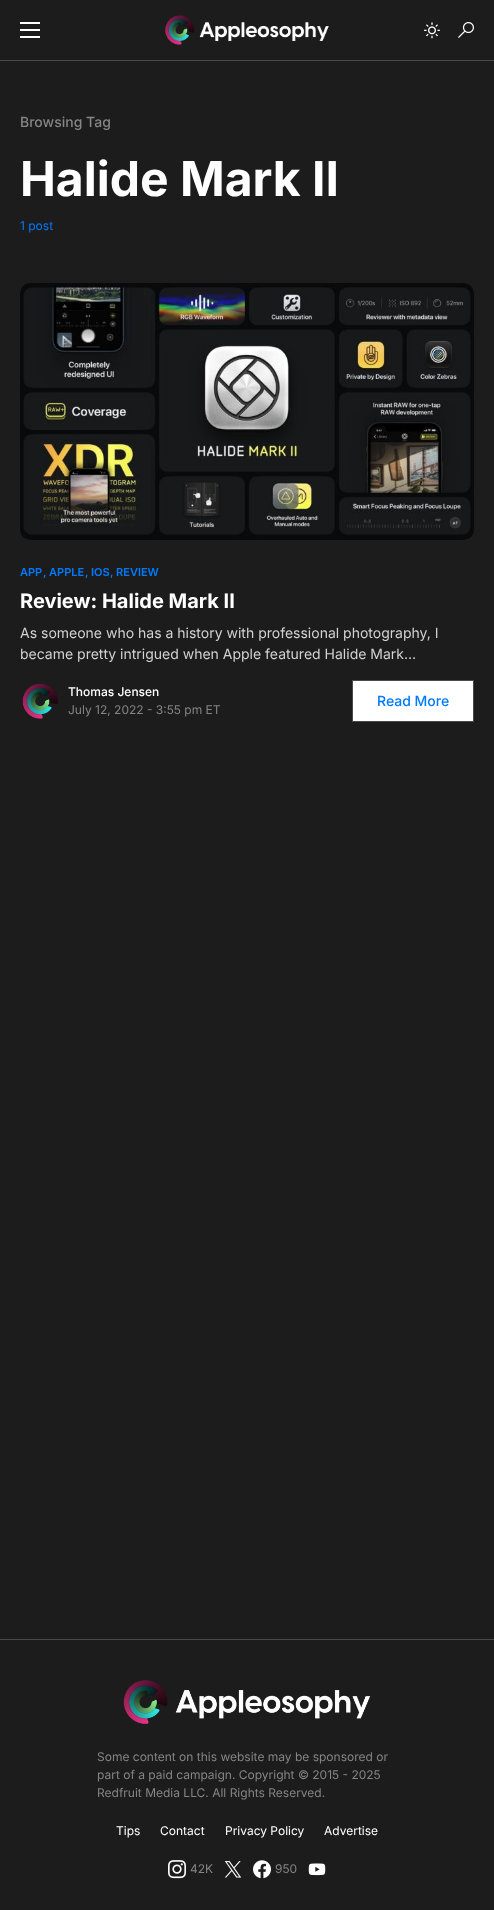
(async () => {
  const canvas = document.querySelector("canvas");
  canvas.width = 494;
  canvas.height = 1910;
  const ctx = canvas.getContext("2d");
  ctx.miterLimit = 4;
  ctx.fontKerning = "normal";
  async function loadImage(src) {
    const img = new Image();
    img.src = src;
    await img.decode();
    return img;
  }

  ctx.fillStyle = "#1c1c1c";
  ctx.fillRect(0, 0, 494, 1910);
  for (const [x, y, w, h, color] of [
    [0, 60, 494, 1, "#49494b"],
    [20, 22, 20, 2, "#ffffff"],
    [20, 29, 20, 2, "#ffffff"],
    [20, 36, 20, 2, "#ffffff"],
  ]) {
    ctx.fillStyle = color;
    ctx.fillRect(x, y, w, h);
  }
  ctx.drawImage(await loadImage("img/1.png"), 164, 15, 165, 30);
  ctx.drawImage(await loadImage("img/2.png"), 424, 22, 16, 17);
  ctx.drawImage(await loadImage("img/3.png"), 458, 22, 16, 16);
  ctx.drawImage(await loadImage("img/4.png"), 20, 283, 454, 257);
  ctx.drawImage(await loadImage("img/5.png"), 22, 683, 36, 36);
  ctx.beginPath();
  ctx.rect(352.5, 680.5, 121, 41);
  ctx.fill();
  ctx.strokeStyle = "#49494b";
  ctx.stroke();
  ctx.fillStyle = "#49494b";
  ctx.fillRect(0, 1639, 494, 1);
  ctx.drawImage(await loadImage("img/6.png"), 123, 1680, 248, 44);
  ctx.drawImage(await loadImage("img/7.png"), 168, 1860, 18, 19);
  ctx.drawImage(await loadImage("img/8.png"), 224, 1861, 18, 17);
  ctx.drawImage(await loadImage("img/9.png"), 253, 1860, 18, 19);
  ctx.drawImage(await loadImage("img/10.png"), 308, 1863, 18, 13);
  ctx.font = "500 14px Inter";
  ctx.fillStyle = "#858585";
  ctx.fillText("Browsing Tag", 20, 127);
  ctx.font = "bold 48px Inter";
  ctx.fillStyle = "#ffffff";
  ctx.fillText("Halide Mark II", 20, 196);
  ctx.font = "12px Inter";
  ctx.fillStyle = "#007aff";
  ctx.fillText("1 post", 20, 230);
  ctx.font = "600 11px Inter";
  for (const [text, x, y] of [
    ["APP", 20, 576],
    [", APPLE", 43, 576],
    [", IOS", 85, 576],
    [", REVIEW", 110, 576],
  ]) {
    ctx.fillText(text, x, y);
  }
  ctx.font = "bold 20px Inter";
  ctx.fillStyle = "#ffffff";
  ctx.fillText("Review: Halide Mark II", 20, 608);
  ctx.font = "14px Inter";
  ctx.fillStyle = "#d2d2d2";
  ctx.fillText("As someone who has a history with professional photography, I", 20, 638);
  ctx.fillText("became pretty intrigued when Apple featured Halide Mark…", 20, 659);
  ctx.font = "500 12px Inter";
  ctx.fillStyle = "#ffffff";
  ctx.fillText("Thomas Jensen", 68, 696);
  ctx.font = "12px Inter";
  ctx.fillStyle = "#858585";
  ctx.fillText("July 12, 2022 - 3:55 pm ET", 68, 714);
  ctx.font = "500 14px Inter";
  ctx.fillStyle = "#007aff";
  ctx.fillText("Read More", 377, 706);
  ctx.font = "12px Inter";
  ctx.fillStyle = "#858585";
  for (const [text, x, y] of [
    ["Some content on this website may be sponsored or", 97, 1761],
    ["part of a paid campaign. Copyright © 2015 - 2025", 97, 1779],
    ["Redfruit Media LLC. All Rights Reserved.", 97, 1797],
  ]) {
    ctx.fillText(text, x, y);
  }
  ctx.fillStyle = "#ffffff";
  for (const [text, x, y] of [
    ["Tips", 116, 1835],
    ["Contact", 160, 1835],
    ["Privacy Policy", 225, 1835],
    ["Advertise", 324, 1835],
  ]) {
    ctx.fillText(text, x, y);
  }
  ctx.fillStyle = "#858585";
  ctx.fillText("42K", 190, 1873);
  ctx.fillText("950", 275, 1873);
})();
